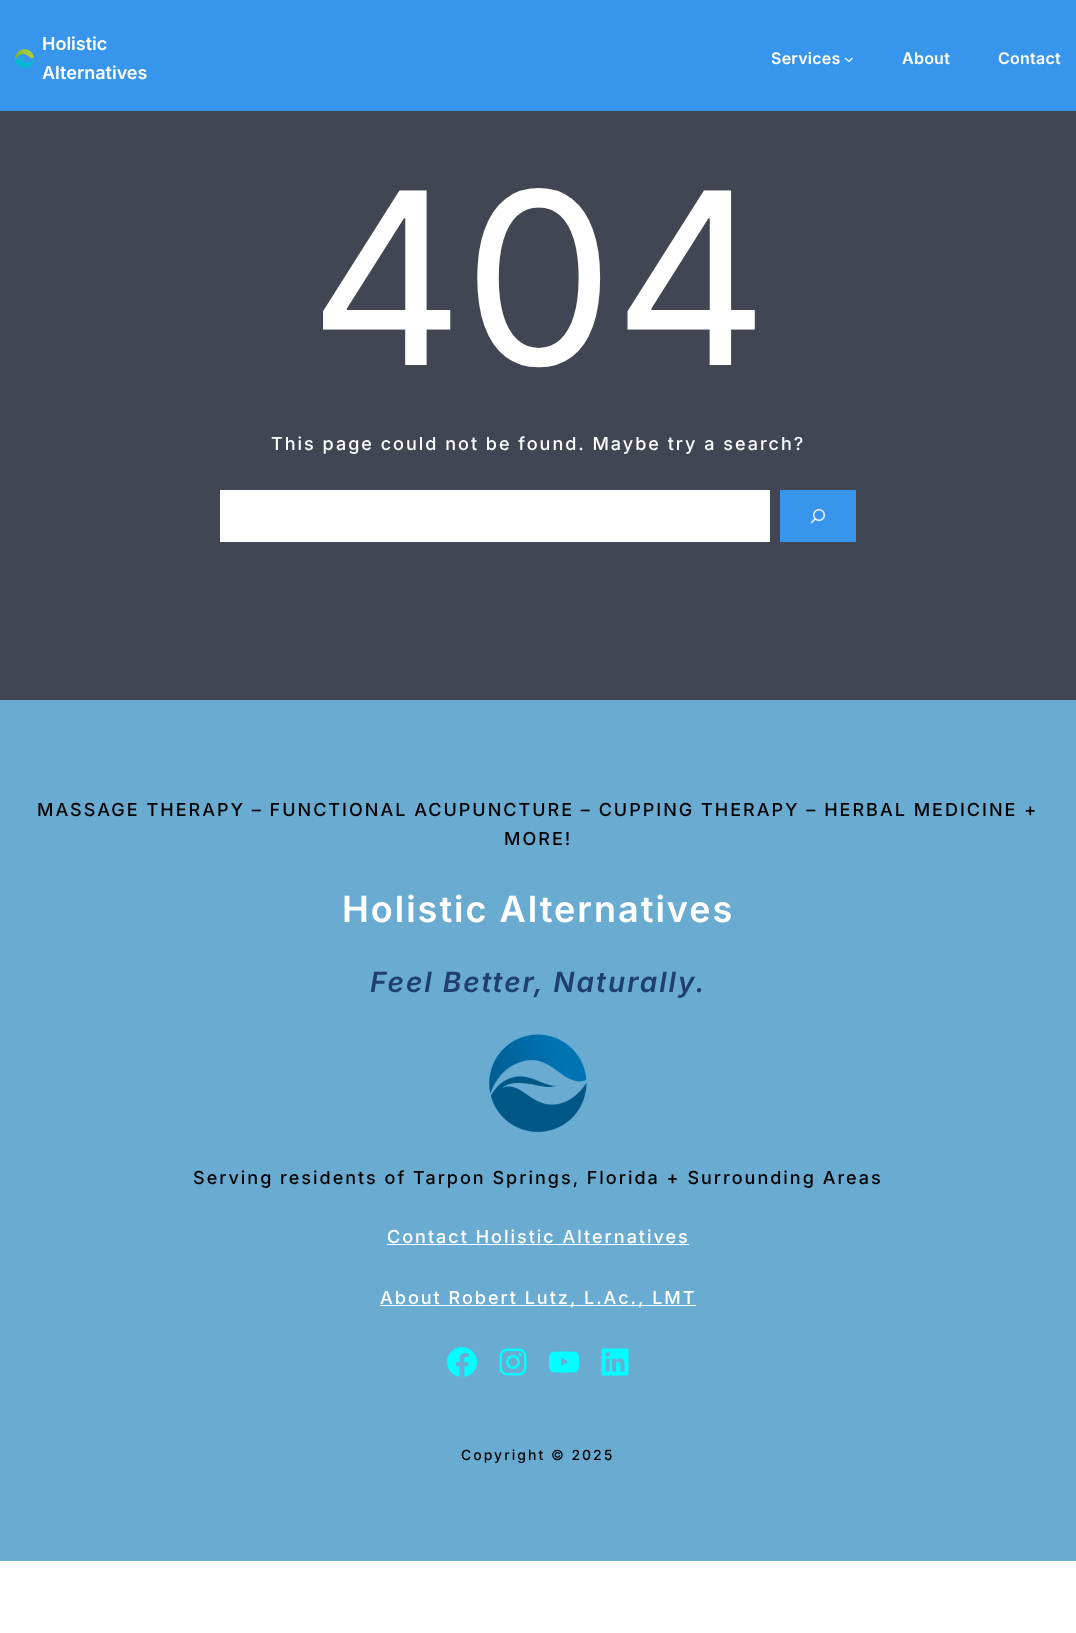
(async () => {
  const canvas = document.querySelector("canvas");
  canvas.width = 1076;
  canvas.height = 1633;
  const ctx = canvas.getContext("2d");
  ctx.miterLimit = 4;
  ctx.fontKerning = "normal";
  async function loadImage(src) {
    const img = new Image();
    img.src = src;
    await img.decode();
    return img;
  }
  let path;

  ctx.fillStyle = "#ffffff";
  ctx.fillRect(0, 0, 1076, 1633);
  ctx.fillStyle = "#3795eb";
  ctx.fillRect(0, 0, 1076, 111);
  ctx.drawImage(await loadImage("img/1.png"), 15, 49, 19, 19);
  path = new Path2D("M845 58L849 61.5L852.5 58");
  ctx.strokeStyle = "#ffffff";
  ctx.lineWidth = 1.2;
  ctx.stroke(path);
  for (const [x, y, w, h, color] of [
    [0, 111, 1076, 589, "#414652"],
    [220, 490, 550, 52, "#ffffff"],
    [780, 490, 76, 52, "#3795eb"],
  ]) {
    ctx.fillStyle = color;
    ctx.fillRect(x, y, w, h);
  }
  ctx.drawImage(await loadImage("img/2.png"), 810, 509, 16, 15);
  ctx.fillStyle = "#6aabd1";
  ctx.fillRect(0, 700, 1076, 861);
  ctx.drawImage(await loadImage("img/3.png"), 488, 1034, 99, 99);
  ctx.fillStyle = "#ffffff";
  ctx.fillRect(387, 1244, 302, 1);
  ctx.fillRect(380, 1305, 316, 1);
  ctx.drawImage(await loadImage("img/4.png"), 447, 1347, 30, 30);
  ctx.drawImage(await loadImage("img/5.png"), 499, 1348, 28, 28);
  ctx.drawImage(await loadImage("img/6.png"), 549, 1351, 30, 22);
  ctx.drawImage(await loadImage("img/7.png"), 601, 1348, 28, 28);
  ctx.font = "600 18px Inter";
  ctx.fillText("Holistic", 42, 50);
  ctx.fillText("Alternatives", 42, 79);
  ctx.letterSpacing = "0.25px";
  ctx.font = "600 16px Inter";
  for (const [text, x, y] of [
    ["Services", 771, 64],
    ["About", 902, 64],
    ["Contact", 998, 64],
  ]) {
    ctx.fillText(text, x, y);
  }
  ctx.letterSpacing = "-1px";
  ctx.font = "240px Inter";
  ctx.fillText("404", 309, 365);
  ctx.letterSpacing = "2px";
  ctx.font = "500 18px Inter";
  ctx.fillText("This page could not be found. Maybe try a search?", 271, 450);
  ctx.fillStyle = "#000000";
  ctx.fillText("MASSAGE THERAPY – FUNCTIONAL ACUPUNCTURE – CUPPING THERAPY – HERBAL MEDICINE +", 37, 816);
  ctx.fillText("MORE!", 504, 845);
  ctx.font = "600 36px Inter";
  ctx.fillStyle = "#ffffff";
  ctx.fillText("Holistic Alternatives", 342, 922);
  ctx.font = "italic 600 28px Inter";
  ctx.fillStyle = "#1f3e72";
  ctx.fillText("Feel Better, Naturally.", 370, 992);
  ctx.font = "500 18px Inter";
  ctx.fillStyle = "#000000";
  ctx.fillText("Serving residents of Tarpon Springs, Florida + Surrounding Areas", 193, 1184);
  ctx.fillStyle = "#ffffff";
  ctx.fillText("Contact Holistic Alternatives", 387, 1243);
  ctx.fillText("About Robert Lutz, L.Ac., LMT", 380, 1304);
  ctx.font = "500 14px Inter";
  ctx.fillStyle = "#000000";
  ctx.fillText("Copyright © 2025", 461, 1460);
})();
